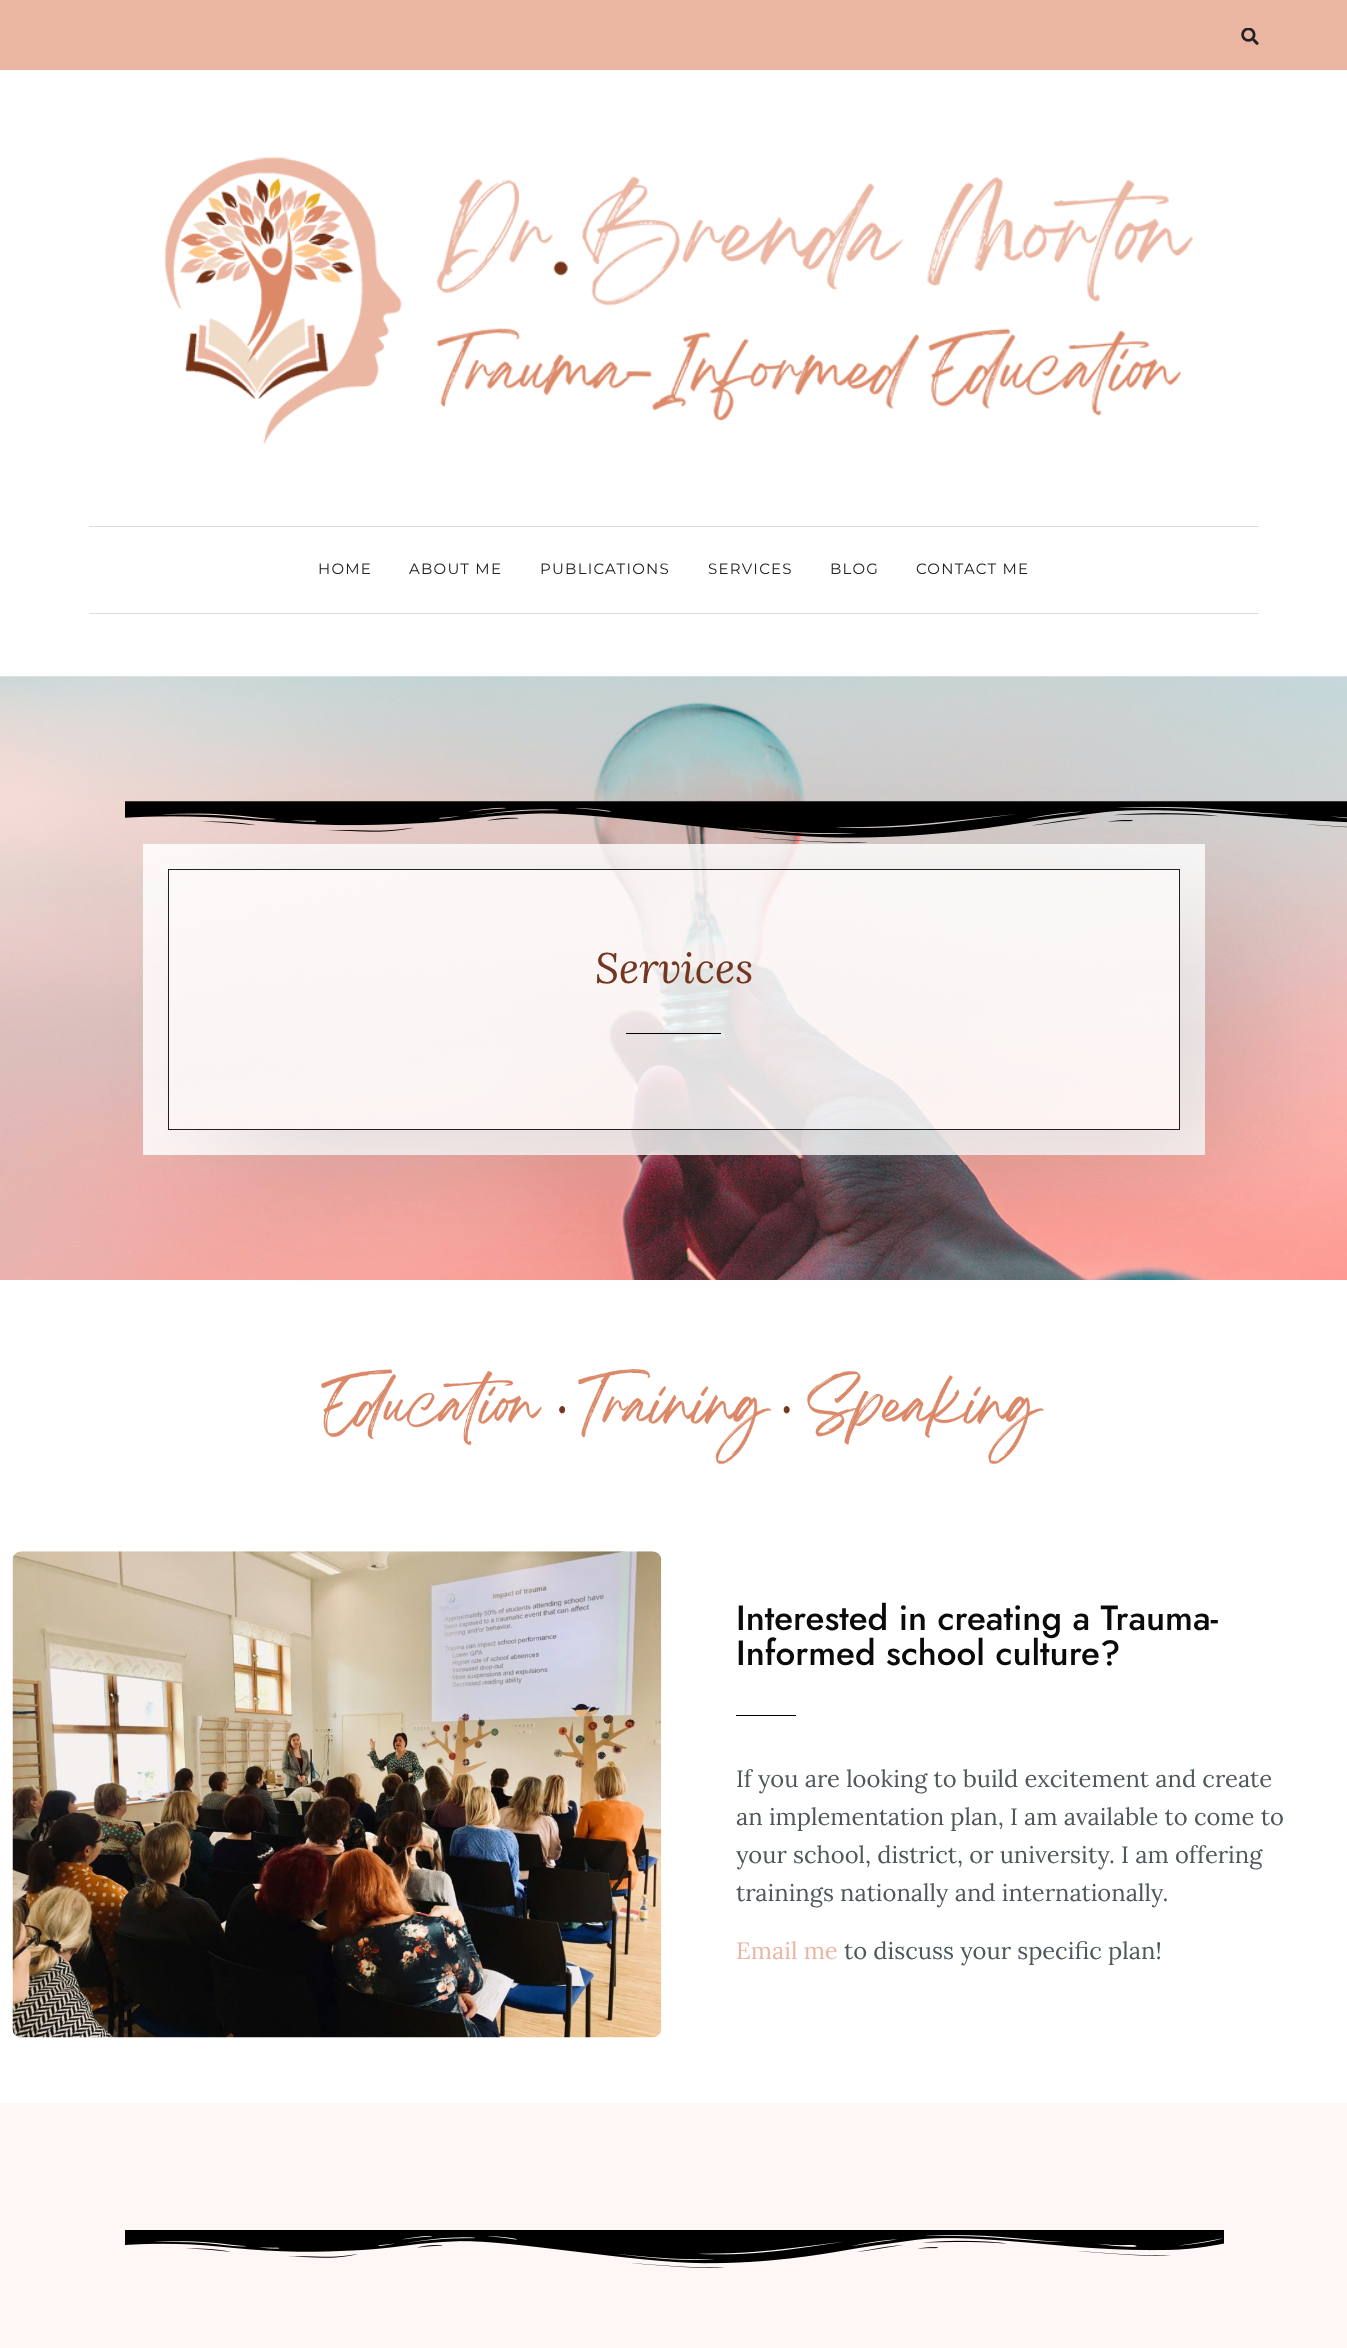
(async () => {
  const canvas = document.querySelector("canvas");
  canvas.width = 1347;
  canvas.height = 2348;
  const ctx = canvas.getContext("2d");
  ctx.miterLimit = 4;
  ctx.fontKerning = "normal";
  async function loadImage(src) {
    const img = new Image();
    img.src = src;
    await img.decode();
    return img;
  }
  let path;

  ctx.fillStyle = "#ffffff";
  ctx.fillRect(0, 0, 1347, 2348);
  ctx.fillStyle = "#eab6a2";
  ctx.fillRect(0, 0, 1347, 70);
  ctx.drawImage(await loadImage("img/1.png"), 1241, 28, 18, 17);
  ctx.drawImage(await loadImage("img/2.png"), 164, 157, 1029, 287);
  ctx.fillStyle = "#dddddd";
  ctx.fillRect(89, 526, 1170, 1);
  ctx.fillRect(89, 613, 1170, 1);
  ctx.drawImage(await loadImage("img/3.png"), 0, 676, 1347, 604);
  ctx.drawImage(await loadImage("img/4.png"), 125, 801, 1222, 42);
  ctx.fillStyle = "rgba(255, 255, 255, 0.86)";
  ctx.fillRect(143, 844, 1062, 311);
  ctx.save();
  path = new Path2D("M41 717H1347V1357H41ZM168 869H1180V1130H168Z");
  ctx.clip(path, "evenodd");
  ctx.fillStyle = "rgba(0, 0, 0, 0.1)";
  ctx.filter = "blur(62.5px)";
  ctx.beginPath();
  ctx.rect(230, 906, 1013, 262);
  ctx.fill();
  ctx.filter = "none";
  ctx.restore();
  ctx.strokeStyle = "#212121";
  ctx.strokeRect(168.5, 869.5, 1011, 260);
  ctx.fillStyle = "#000000";
  ctx.fillRect(626, 1033, 95, 1);
  ctx.drawImage(await loadImage("img/5.png"), 321, 1369, 723, 95);
  ctx.drawImage(await loadImage("img/6.png"), 12, 1551, 650, 487);
  ctx.fillRect(736, 1715, 60, 1);
  ctx.fillStyle = "#fff6f6";
  ctx.fillRect(0, 2103, 1347, 245);
  ctx.drawImage(await loadImage("img/7.png"), 125, 2230, 1099, 38);
  ctx.letterSpacing = "1.25px";
  ctx.font = "100 15px Montserrat";
  ctx.fillStyle = "#212121";
  for (const [text, x, y] of [
    ["HOME", 318, 574],
    ["ABOUT ME", 409, 574],
    ["PUBLICATIONS", 540, 574],
    ["SERVICES", 708, 574],
    ["BLOG", 830, 574],
    ["CONTACT ME", 916, 574],
  ]) {
    ctx.fillText(text, x, y);
  }
  ctx.letterSpacing = "0px";
  ctx.font = "italic 42.5px Lora";
  ctx.fillStyle = "#74361e";
  ctx.fillText("Services", 595, 983);
  ctx.font = "500 35px Jost";
  ctx.fillStyle = "#0a0a0a";
  ctx.fillText("Interested in creating a Trauma-", 736, 1630);
  ctx.fillText("Informed school culture?", 736, 1665);
  ctx.font = "23.75px Lora";
  ctx.fillStyle = "#4e575c";
  for (const [text, x, y] of [
    ["If you are looking to build excitement and create", 736, 1787],
    ["an implementation plan, I am available to come to", 736, 1825],
    ["your school, district, or university. I am offering", 736, 1863],
    ["trainings nationally and internationally.", 736, 1901],
  ]) {
    ctx.fillText(text, x, y);
  }
  ctx.fillStyle = "#eab6a2";
  ctx.fillText("Email me", 736, 1959);
  ctx.fillStyle = "#4e575c";
  ctx.fillText("to discuss your specific plan!", 844, 1959);
})();
